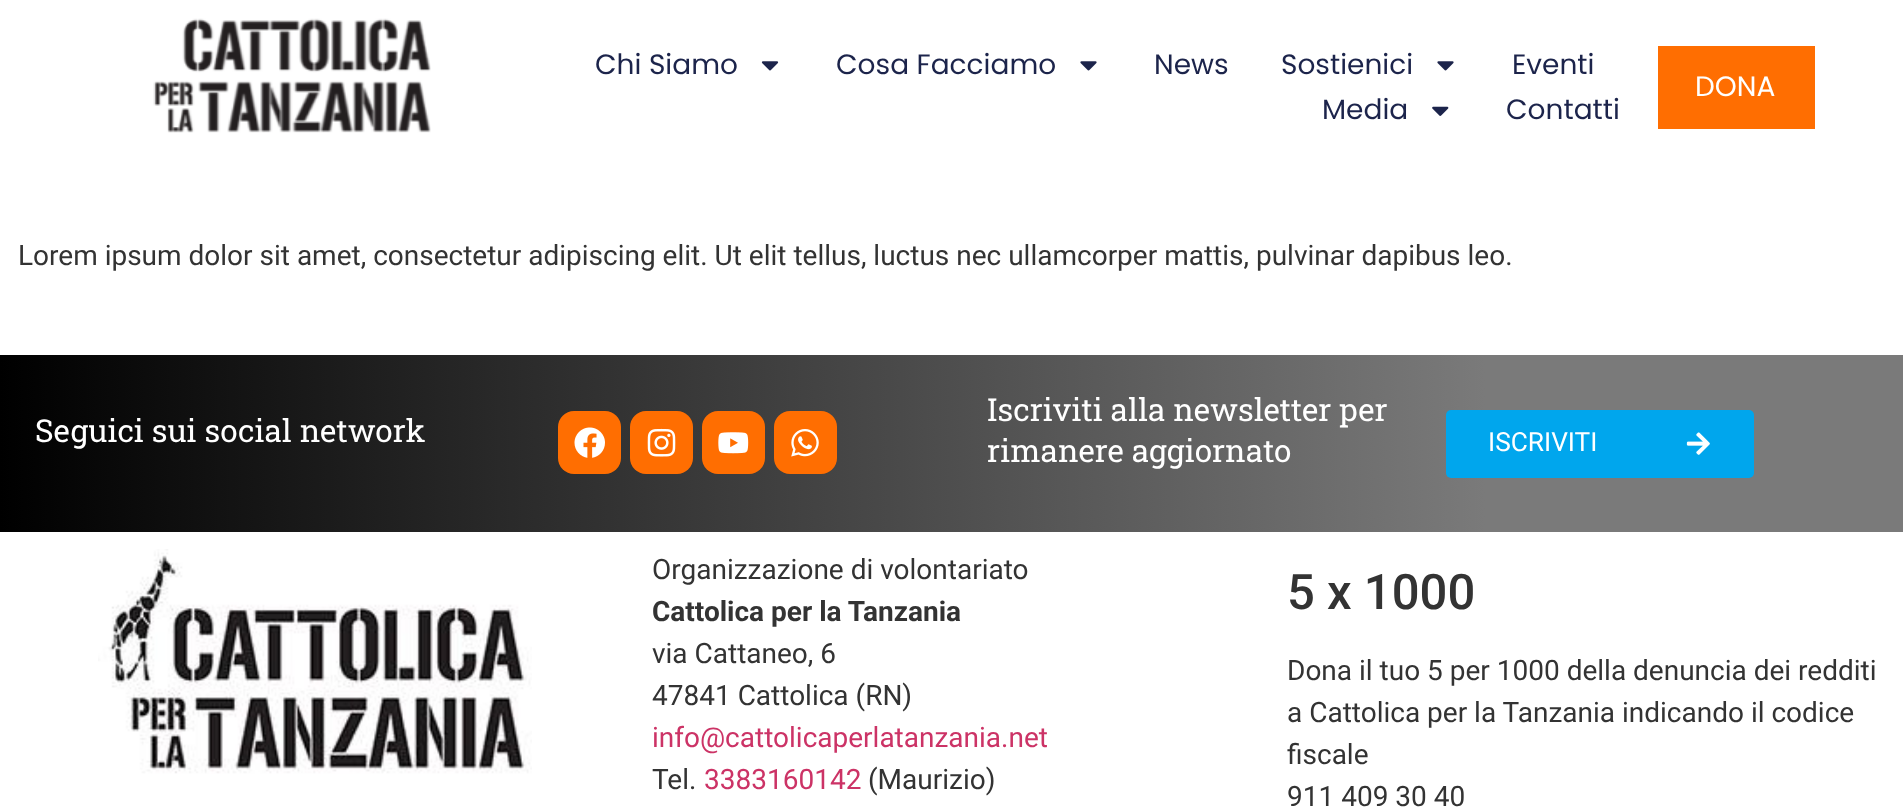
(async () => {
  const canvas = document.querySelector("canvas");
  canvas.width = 1903;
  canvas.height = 808;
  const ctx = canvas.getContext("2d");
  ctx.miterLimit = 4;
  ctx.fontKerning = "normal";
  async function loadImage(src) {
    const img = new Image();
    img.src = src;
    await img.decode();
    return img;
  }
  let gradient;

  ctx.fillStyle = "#ffffff";
  ctx.fillRect(0, 0, 1903, 808);
  ctx.drawImage(await loadImage("img/1.png"), 153, 18, 278, 115);
  ctx.drawImage(await loadImage("img/2.png"), 761, 61, 18, 10);
  ctx.drawImage(await loadImage("img/3.png"), 1080, 61, 17, 10);
  ctx.drawImage(await loadImage("img/3.png"), 1437, 61, 17, 10);
  ctx.drawImage(await loadImage("img/4.png"), 1432, 106, 17, 10);
  ctx.fillStyle = "#ff6e01";
  ctx.fillRect(1658, 46, 157, 83);
  gradient = ctx.createLinearGradient(0, 444, 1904, 444);
  gradient.addColorStop(0, "#000000");
  gradient.addColorStop(0.78, "#7a7a7a");
  ctx.fillStyle = gradient;
  ctx.fillRect(0, 355, 1903, 177);
  ctx.fillStyle = "#ff6e01";
  ctx.beginPath();
  ctx.roundRect(558, 411, 63, 63, 16);
  ctx.fill();
  ctx.drawImage(await loadImage("img/5.png"), 574, 427, 31, 31);
  ctx.beginPath();
  ctx.roundRect(630, 411, 63, 63, 16);
  ctx.fill();
  ctx.drawImage(await loadImage("img/6.png"), 647, 428, 29, 29);
  ctx.beginPath();
  ctx.roundRect(702, 411, 63, 63, 16);
  ctx.fill();
  ctx.drawImage(await loadImage("img/7.png"), 718, 432, 31, 22);
  ctx.beginPath();
  ctx.roundRect(774, 411, 63, 63, 16);
  ctx.fill();
  ctx.drawImage(await loadImage("img/8.png"), 791, 429, 28, 28);
  ctx.fillStyle = "#00a6ed";
  ctx.beginPath();
  ctx.roundRect(1446, 410, 308, 68, 5);
  ctx.fill();
  ctx.drawImage(await loadImage("img/9.png"), 1686, 432, 24, 23);
  ctx.drawImage(await loadImage("img/10.png"), 98, 549, 434, 225);
  ctx.font = "28px Poppins";
  ctx.fillStyle = "#1c244b";
  for (const [text, x, y] of [
    ["Chi Siamo", 595, 74],
    ["Cosa Facciamo", 836, 74],
    ["News", 1154, 74],
    ["Sostienici", 1281, 74],
    ["Eventi", 1512, 74],
    ["Media", 1322, 119],
    ["Contatti", 1506, 119],
  ]) {
    ctx.fillText(text, x, y);
  }
  ctx.fillStyle = "#ffffff";
  ctx.fillText("DONA", 1695, 96);
  ctx.font = "28px Roboto";
  ctx.fillStyle = "#333333";
  ctx.fillText("Lorem ipsum dolor sit amet, consectetur adipiscing elit. Ut elit tellus, luctus nec ullamcorper mattis, pulvinar dapibus leo.", 18, 265);
  ctx.font = "31.5px Roboto Slab";
  ctx.fillStyle = "#ffffff";
  for (const [text, x, y] of [
    ["Seguici sui social network", 35, 442],
    ["Iscriviti alla newsletter per", 987, 421],
    ["rimanere aggiornato", 987, 462],
  ]) {
    ctx.fillText(text, x, y);
  }
  ctx.font = "26.25px Roboto";
  ctx.fillText("ISCRIVITI", 1488, 451);
  ctx.font = "28px Roboto";
  ctx.fillStyle = "#333333";
  ctx.fillText("Organizzazione di volontariato", 652, 579);
  ctx.font = "bold 28px Roboto";
  ctx.fillText("Cattolica per la Tanzania", 652, 621);
  ctx.font = "28px Roboto";
  ctx.fillText("via Cattaneo, 6", 652, 663);
  ctx.fillText("47841 Cattolica (RN)", 652, 705);
  ctx.fillStyle = "#cc3366";
  ctx.fillText("info@cattolicaperlatanzania.net", 652, 747);
  ctx.fillStyle = "#333333";
  ctx.fillText("Tel.", 652, 789);
  ctx.fillStyle = "#cc3366";
  ctx.fillText("3383160142", 704, 789);
  ctx.fillStyle = "#333333";
  ctx.fillText("(Maurizio)", 868, 789);
  ctx.font = "500 49px Roboto";
  ctx.fillText("5 x 1000", 1287, 609);
  ctx.font = "28px Roboto";
  for (const [text, x, y] of [
    ["Dona il tuo 5 per 1000 della denuncia dei redditi", 1287, 680],
    ["a Cattolica per la Tanzania indicando il codice", 1287, 722],
    ["fiscale", 1287, 764],
    ["911 409 30 40", 1287, 806],
  ]) {
    ctx.fillText(text, x, y);
  }
})();
